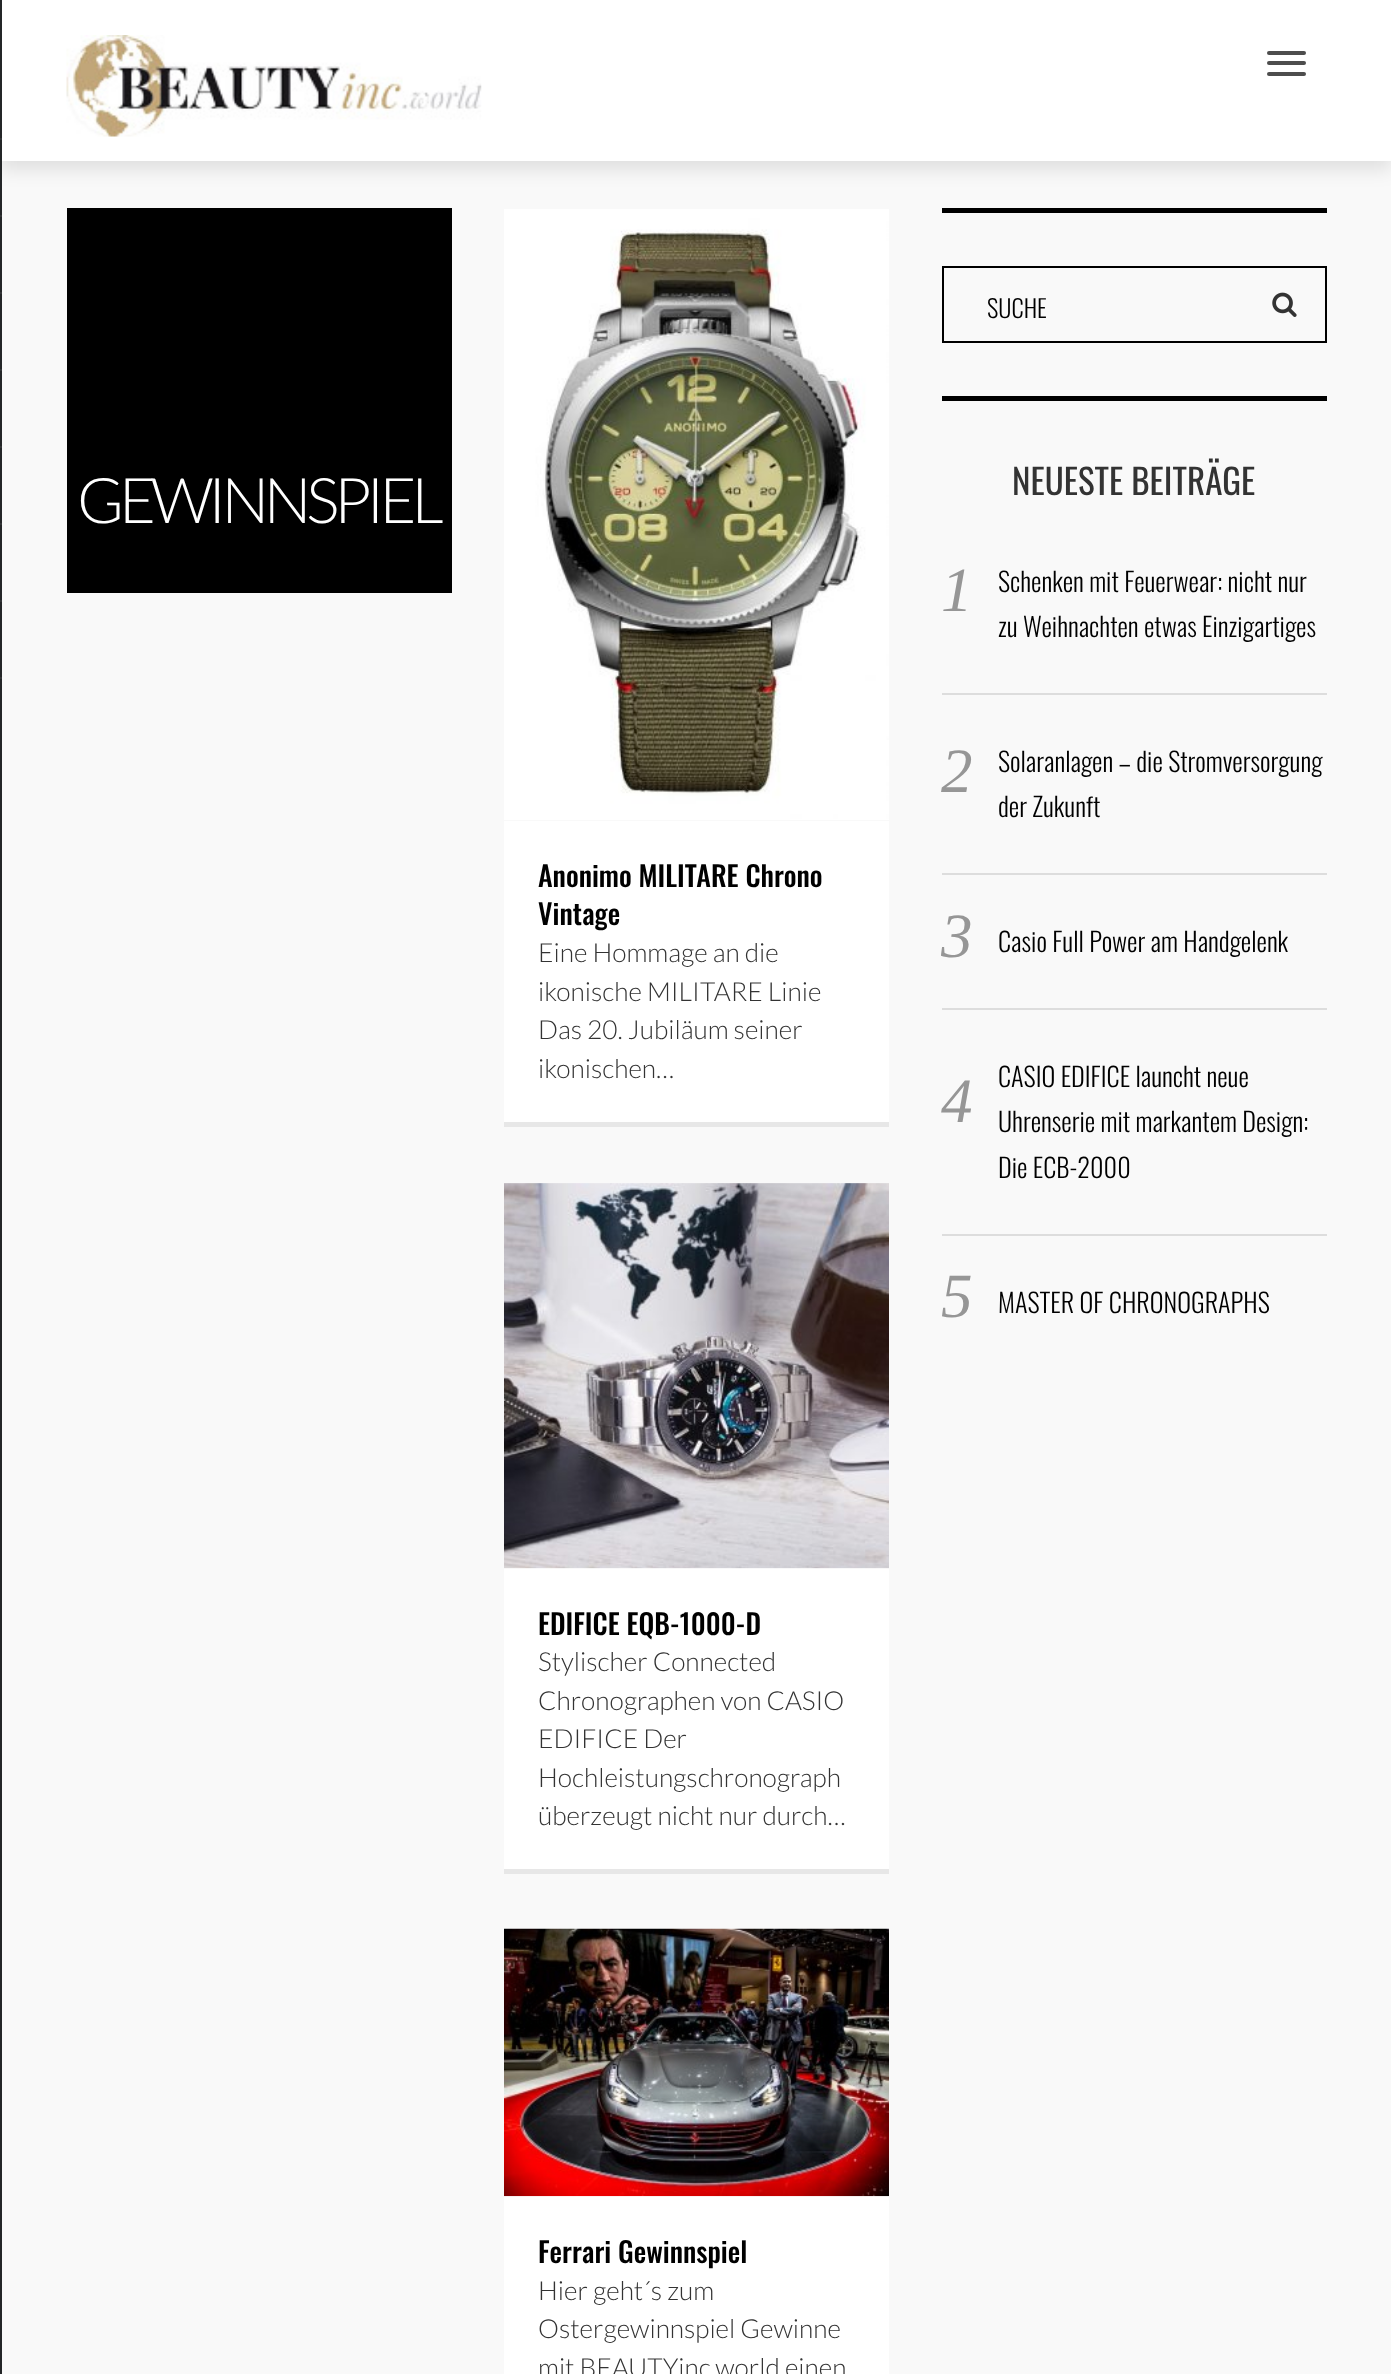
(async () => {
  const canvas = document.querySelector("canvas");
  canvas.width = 1391;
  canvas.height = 2374;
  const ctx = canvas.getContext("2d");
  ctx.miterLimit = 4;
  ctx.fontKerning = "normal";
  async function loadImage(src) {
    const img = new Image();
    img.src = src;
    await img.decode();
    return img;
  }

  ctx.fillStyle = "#f9f9f9";
  ctx.fillRect(0, 0, 1391, 2374);
  ctx.fillStyle = "rgba(0, 0, 0, 0.1)";
  ctx.filter = "blur(9px)";
  ctx.beginPath();
  ctx.rect(0, 9, 1391, 161);
  ctx.fill();
  ctx.filter = "none";
  ctx.fillStyle = "#ffffff";
  ctx.fillRect(2, 0, 1389, 161);
  ctx.drawImage(await loadImage("img/1.png"), 66, 35, 416, 102);
  ctx.fillStyle = "#4d4d4d";
  ctx.beginPath();
  ctx.roundRect(1267, 51, 39, 4, 2);
  ctx.fill();
  ctx.beginPath();
  ctx.roundRect(1267, 61, 39, 4, 2);
  ctx.fill();
  ctx.beginPath();
  ctx.roundRect(1267, 72, 39, 4, 2);
  ctx.fill();
  for (const [x, y, w, h, color] of [
    [0, 0, 2, 2374, "#242628"],
    [0, 138, 2, 2, "#333537"],
    [0, 215, 2, 2, "#333537"],
    [0, 292, 2, 2, "#333537"],
    [0, 369, 2, 2, "#333537"],
    [0, 446, 2, 2, "#333537"],
    [0, 523, 2, 2, "#333537"],
    [0, 600, 2, 2, "#333537"],
    [0, 677, 2, 2, "#333537"],
    [67, 208, 385, 385, "#000000"],
    [942, 208, 385, 5, "#000000"],
  ]) {
    ctx.fillStyle = color;
    ctx.fillRect(x, y, w, h);
  }
  ctx.strokeStyle = "#000000";
  ctx.lineWidth = 2;
  ctx.strokeRect(943, 267, 383, 75);
  ctx.drawImage(await loadImage("img/2.png"), 1272, 292, 25, 25);
  for (const [x, y, w, h, color] of [
    [942, 396, 385, 5, "#000000"],
    [942, 693, 385, 2, "#dddddd"],
    [942, 873, 385, 2, "#dddddd"],
    [942, 1008, 385, 2, "#dddddd"],
    [942, 1234, 385, 2, "#dddddd"],
  ]) {
    ctx.fillStyle = color;
    ctx.fillRect(x, y, w, h);
  }
  ctx.drawImage(await loadImage("img/3.png"), 504, 209, 385, 611);
  for (const [x, y, w, h, color] of [
    [504, 821, 385, 301, "#ffffff"],
    [504, 1122, 385, 5, "#e7e7e7"],
    [504, 1568, 385, 301, "#ffffff"],
  ]) {
    ctx.fillStyle = color;
    ctx.fillRect(x, y, w, h);
  }
  ctx.drawImage(await loadImage("img/4.png"), 504, 1183, 385, 386);
  ctx.fillStyle = "#e7e7e7";
  ctx.fillRect(504, 1869, 385, 5);
  ctx.fillStyle = "#ffffff";
  ctx.fillRect(504, 2196, 385, 178);
  ctx.drawImage(await loadImage("img/5.png"), 504, 1928, 385, 269);
  ctx.letterSpacing = "-5.25px";
  ctx.font = "300 63px Lato";
  ctx.fillText("GEWINNSPIEL", 77, 523);
  ctx.letterSpacing = "0px";
  ctx.font = "300 24.5px Oswald";
  ctx.fillStyle = "#000000";
  ctx.fillText("SUCHE", 987, 318);
  ctx.font = "35px Oswald";
  ctx.fillStyle = "#333333";
  ctx.fillText("NEUESTE BEITRÄGE", 1012, 495);
  ctx.font = "italic 63px Liberation Serif";
  ctx.fillStyle = "#969696";
  ctx.fillText("1", 941, 611);
  ctx.font = "300 26.25px Oswald";
  ctx.fillStyle = "#000000";
  ctx.fillText("Schenken mit Feuerwear: nicht nur", 998, 592);
  ctx.fillText("zu Weihnachten etwas Einzigartiges", 998, 637);
  ctx.font = "italic 63px Liberation Serif";
  ctx.fillStyle = "#969696";
  ctx.fillText("2", 941, 792);
  ctx.font = "300 26.25px Oswald";
  ctx.fillStyle = "#000000";
  ctx.fillText("Solaranlagen – die Stromversorgung", 998, 772);
  ctx.fillText("der Zukunft", 998, 817);
  ctx.font = "italic 63px Liberation Serif";
  ctx.fillStyle = "#969696";
  ctx.fillText("3", 941, 957);
  ctx.font = "300 26.25px Oswald";
  ctx.fillStyle = "#000000";
  ctx.fillText("Casio Full Power am Handgelenk", 998, 952);
  ctx.fillText("CASIO EDIFICE launcht neue", 998, 1087);
  ctx.font = "italic 63px Liberation Serif";
  ctx.fillStyle = "#969696";
  ctx.fillText("4", 941, 1122);
  ctx.font = "300 26.25px Oswald";
  ctx.fillStyle = "#000000";
  ctx.fillText("Uhrenserie mit markantem Design:", 998, 1132);
  ctx.fillText("Die ECB-2000", 998, 1178);
  ctx.font = "italic 63px Liberation Serif";
  ctx.fillStyle = "#969696";
  ctx.fillText("5", 941, 1317);
  ctx.font = "300 26.25px Oswald";
  ctx.fillStyle = "#000000";
  ctx.fillText("MASTER OF CHRONOGRAPHS", 998, 1313);
  ctx.font = "500 28px Oswald";
  ctx.fillText("Anonimo MILITARE Chrono", 538, 887);
  ctx.fillText("Vintage", 538, 925);
  ctx.font = "300 26.25px Lato";
  ctx.fillStyle = "#333333";
  for (const [text, x, y] of [
    ["Eine Hommage an die", 538, 962],
    ["ikonische MILITARE Linie", 538, 1001],
    ["Das 20. Jubiläum seiner", 538, 1039],
    ["ikonischen…", 538, 1078],
  ]) {
    ctx.fillText(text, x, y);
  }
  ctx.font = "500 28px Oswald";
  ctx.fillStyle = "#000000";
  ctx.fillText("EDIFICE EQB-1000-D", 538, 1635);
  ctx.font = "300 26.25px Lato";
  ctx.fillStyle = "#333333";
  for (const [text, x, y] of [
    ["Stylischer Connected", 538, 1671],
    ["Chronographen von CASIO", 538, 1710],
    ["EDIFICE Der", 538, 1748],
    ["Hochleistungschronograph", 538, 1787],
    ["überzeugt nicht nur durch…", 538, 1825],
  ]) {
    ctx.fillText(text, x, y);
  }
  ctx.font = "500 28px Oswald";
  ctx.fillStyle = "#000000";
  ctx.fillText("Ferrari Gewinnspiel", 538, 2263);
  ctx.font = "300 26.25px Lato";
  ctx.fillStyle = "#333333";
  for (const [text, x, y] of [
    ["Hier geht´s zum", 538, 2300],
    ["Ostergewinnspiel Gewinne", 538, 2338],
    ["mit BEAUTYinc.world einen", 538, 2377],
  ]) {
    ctx.fillText(text, x, y);
  }
})();
